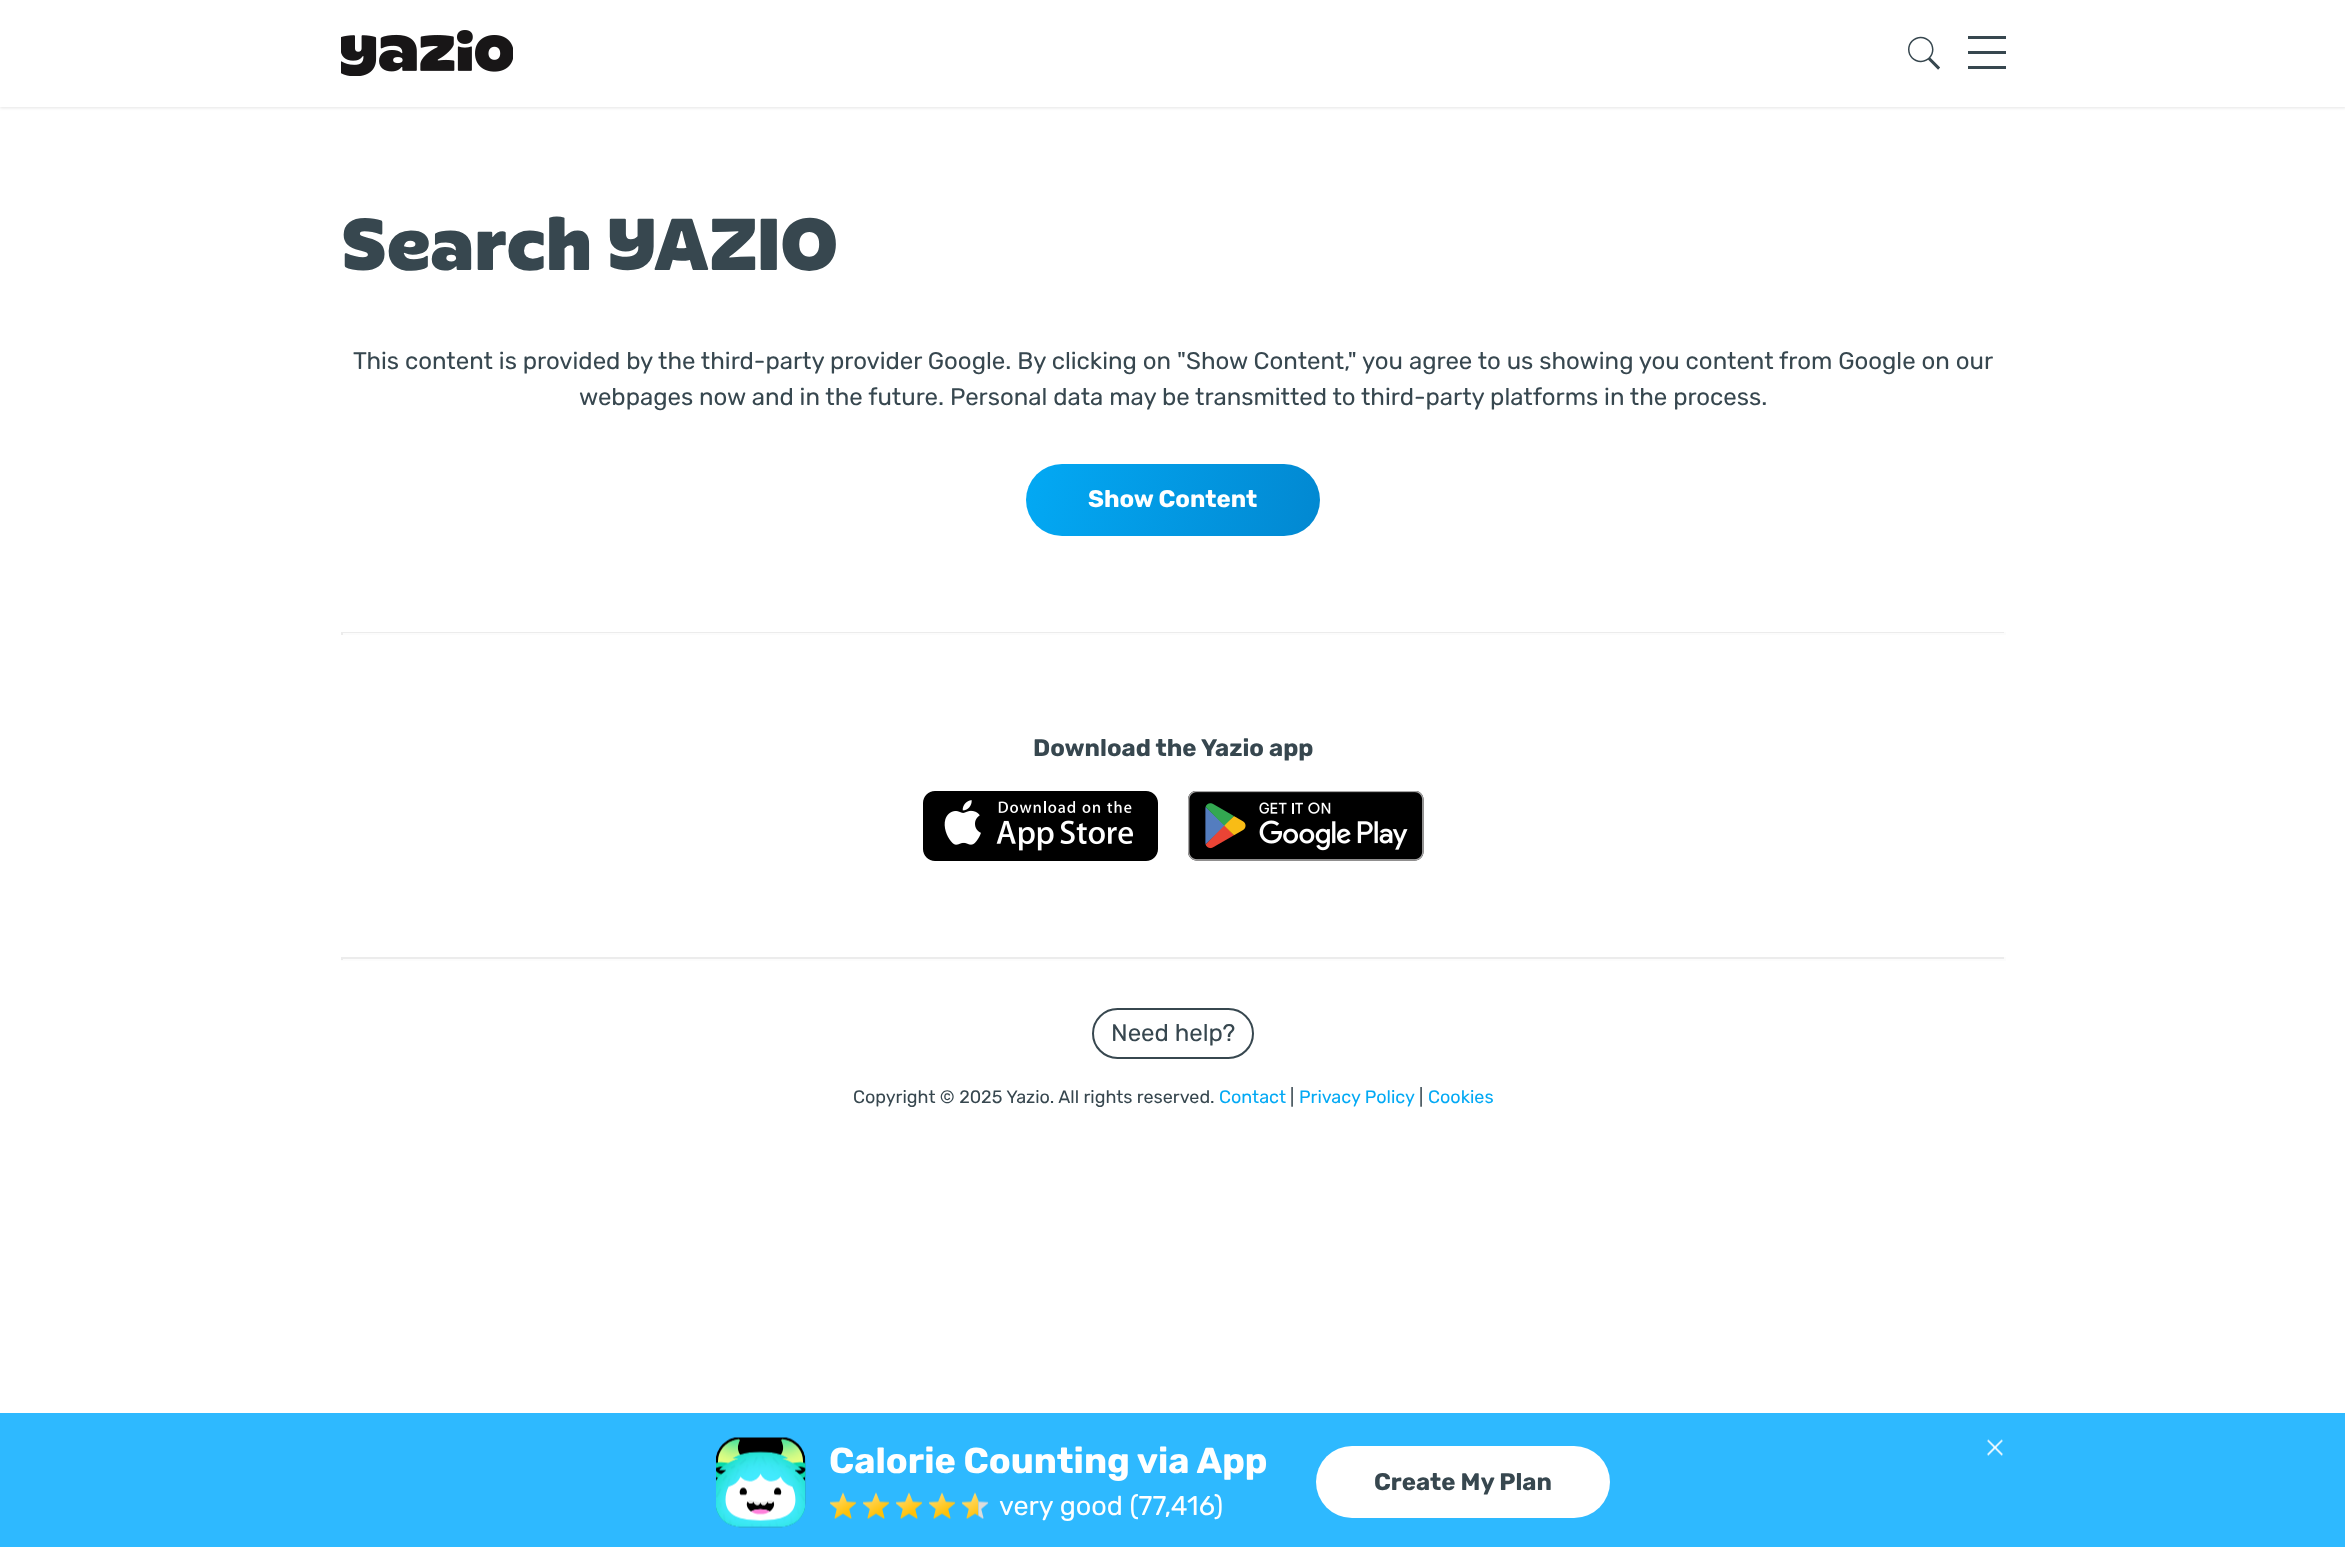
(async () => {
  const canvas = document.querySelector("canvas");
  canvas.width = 2345;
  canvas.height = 1547;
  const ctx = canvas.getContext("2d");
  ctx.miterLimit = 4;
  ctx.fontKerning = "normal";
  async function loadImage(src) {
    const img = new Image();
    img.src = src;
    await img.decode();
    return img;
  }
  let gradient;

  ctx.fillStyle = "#ffffff";
  ctx.fillRect(0, 0, 2345, 1547);
  ctx.fillStyle = "rgba(0, 0, 0, 0.1)";
  ctx.filter = "blur(1.5px)";
  ctx.beginPath();
  ctx.rect(0, 2, 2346, 106);
  ctx.fill();
  ctx.filter = "none";
  ctx.fillStyle = "#ffffff";
  ctx.fillRect(0, 0, 2345, 107);
  ctx.drawImage(await loadImage("img/1.png"), 341, 30, 172, 46);
  ctx.drawImage(await loadImage("img/2.png"), 1908, 36, 32, 34);
  for (const [x, y, w, h, color] of [
    [1968, 36, 38, 3, "#37474f"],
    [1968, 51, 38, 3, "#37474f"],
    [1968, 66, 38, 3, "#37474f"],
  ]) {
    ctx.fillStyle = color;
    ctx.fillRect(x, y, w, h);
  }
  gradient = ctx.createLinearGradient(1026, 465, 1320, 534);
  gradient.addColorStop(0, "#03a9f4");
  gradient.addColorStop(1, "#0288d1");
  ctx.fillStyle = gradient;
  ctx.beginPath();
  ctx.roundRect(1026, 464, 294, 72, 36);
  ctx.fill();
  for (const [x, y, w, h, color] of [
    [341, 632, 1665, 1, "#ececec"],
    [2004, 632, 2, 3, "#fcfcfc"],
    [341, 633, 1665, 2, "#fcfcfc"],
    [341, 632, 2, 3, "#ececec"],
  ]) {
    ctx.fillStyle = color;
    ctx.fillRect(x, y, w, h);
  }
  ctx.drawImage(await loadImage("img/3.png"), 923, 791, 235, 70);
  ctx.drawImage(await loadImage("img/4.png"), 1188, 791, 236, 70);
  for (const [x, y, w, h, color] of [
    [341, 957, 1665, 2, "#ececec"],
    [2004, 957, 2, 3, "#fcfcfc"],
    [341, 959, 1665, 2, "#fcfcfc"],
    [341, 957, 2, 3, "#ececec"],
  ]) {
    ctx.fillStyle = color;
    ctx.fillRect(x, y, w, h);
  }
  ctx.beginPath();
  ctx.roundRect(1093, 1009, 160, 49, 24.5);
  ctx.strokeStyle = "#37474f";
  ctx.lineWidth = 2;
  ctx.stroke();
  ctx.fillStyle = "#2eb9ff";
  ctx.fillRect(0, 1413, 2345, 134);
  ctx.drawImage(await loadImage("img/5.png"), 716, 1437, 90, 91);
  ctx.drawImage(await loadImage("img/6.png"), 830, 1492, 27, 27);
  ctx.drawImage(await loadImage("img/7.png"), 863, 1492, 27, 27);
  ctx.drawImage(await loadImage("img/8.png"), 896, 1492, 27, 27);
  ctx.drawImage(await loadImage("img/9.png"), 929, 1492, 27, 27);
  ctx.drawImage(await loadImage("img/10.png"), 962, 1492, 27, 27);
  ctx.fillStyle = "#ffffff";
  ctx.beginPath();
  ctx.roundRect(1316, 1446, 294, 72, 36);
  ctx.fill();
  ctx.drawImage(await loadImage("img/11.png"), 1987, 1439, 16, 17);
  ctx.font = "bold 76.5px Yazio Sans";
  ctx.fillStyle = "#37474f";
  ctx.fillText("Search YAZIO", 341, 270);
  ctx.font = "24px Rubik";
  ctx.fillText("This content is provided by the third-party provider Google. By clicking on \"Show Content,\" you agree to us showing you content from Google on our", 353, 369);
  ctx.fillText("webpages now and in the future. Personal data may be transmitted to third-party platforms in the process.", 579, 405);
  ctx.font = "bold 24px Rubik";
  ctx.fillStyle = "#ffffff";
  ctx.fillText("Show Content", 1088, 507);
  ctx.fillStyle = "#37474f";
  ctx.fillText("Download the Yazio app", 1033, 756);
  ctx.font = "24px Rubik";
  ctx.fillText("Need help?", 1111, 1041);
  ctx.font = "18px Rubik";
  ctx.fillText("Copyright © 2025 Yazio. All rights reserved.", 853, 1103);
  ctx.fillStyle = "#03a9f4";
  ctx.fillText("Contact", 1219, 1103);
  ctx.fillStyle = "#37474f";
  ctx.fillText("|", 1290, 1103);
  ctx.fillStyle = "#03a9f4";
  ctx.fillText("Privacy Policy", 1299, 1103);
  ctx.fillStyle = "#37474f";
  ctx.fillText("|", 1419, 1103);
  ctx.fillStyle = "#03a9f4";
  ctx.fillText("Cookies", 1428, 1103);
  ctx.font = "bold 36px Rubik";
  ctx.fillStyle = "#ffffff";
  ctx.fillText("Calorie Counting via App", 829, 1473);
  ctx.font = "27px Rubik";
  ctx.fillText("very good (77,416)", 999, 1515);
  ctx.font = "bold 24px Rubik";
  ctx.fillStyle = "#37474f";
  ctx.fillText("Create My Plan", 1374, 1490);
})();
